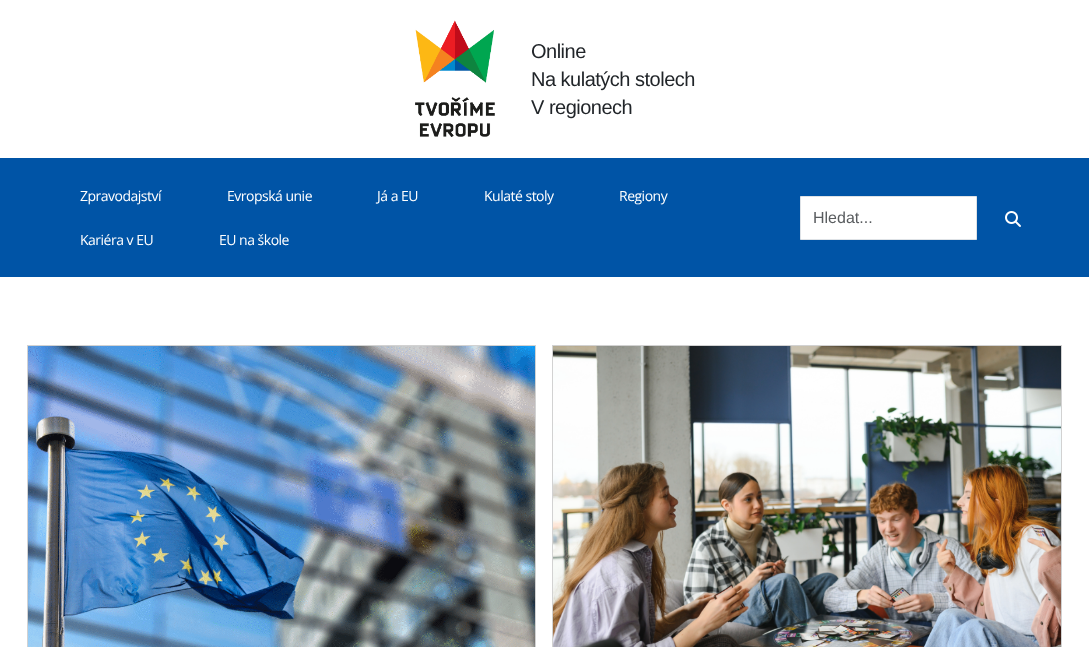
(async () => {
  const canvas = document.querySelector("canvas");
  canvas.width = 1089;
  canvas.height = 647;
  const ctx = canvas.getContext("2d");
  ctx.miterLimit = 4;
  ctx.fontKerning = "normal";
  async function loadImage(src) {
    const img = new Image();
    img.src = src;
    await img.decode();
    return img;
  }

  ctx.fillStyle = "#ffffff";
  ctx.fillRect(0, 0, 1089, 647);
  ctx.drawImage(await loadImage("img/1.png"), 415, 20, 80, 117);
  ctx.fillStyle = "#0054a6";
  ctx.fillRect(0, 158, 1089, 119);
  ctx.fillStyle = "#ffffff";
  ctx.beginPath();
  ctx.rect(800.5, 196.5, 176, 43);
  ctx.fill();
  ctx.strokeStyle = "#dee2e6";
  ctx.stroke();
  ctx.drawImage(await loadImage("img/2.png"), 1005, 211, 16, 16);
  ctx.strokeStyle = "#d2d2d2";
  ctx.strokeRect(27.5, 345.5, 508, 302);
  ctx.drawImage(await loadImage("img/3.png"), 28, 346, 507, 301);
  ctx.strokeRect(552.5, 345.5, 509, 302);
  ctx.drawImage(await loadImage("img/4.png"), 553, 346, 508, 301);
  ctx.letterSpacing = "-0.5px";
  ctx.font = "20px Liberation Sans";
  ctx.fillStyle = "#212529";
  for (const [text, x, y] of [
    ["Online", 531, 58],
    ["Na kulatých stolech", 531, 86],
    ["V regionech", 531, 114],
  ]) {
    ctx.fillText(text, x, y);
  }
  ctx.font = "14px Open Sans";
  ctx.fillStyle = "#ffffff";
  for (const [text, x, y] of [
    ["Zpravodajství", 80, 201],
    ["Evropská unie", 227, 201],
    ["Já a EU", 377, 201],
    ["Kulaté stoly", 484, 201],
    ["Regiony", 619, 201],
    ["Kariéra v EU", 80, 245],
    ["EU na škole", 219, 245],
  ]) {
    ctx.fillText(text, x, y);
  }
  ctx.letterSpacing = "0px";
  ctx.font = "16px Liberation Sans";
  ctx.fillStyle = "#595c5f";
  ctx.fillText("Hledat...", 813, 223);
})();
